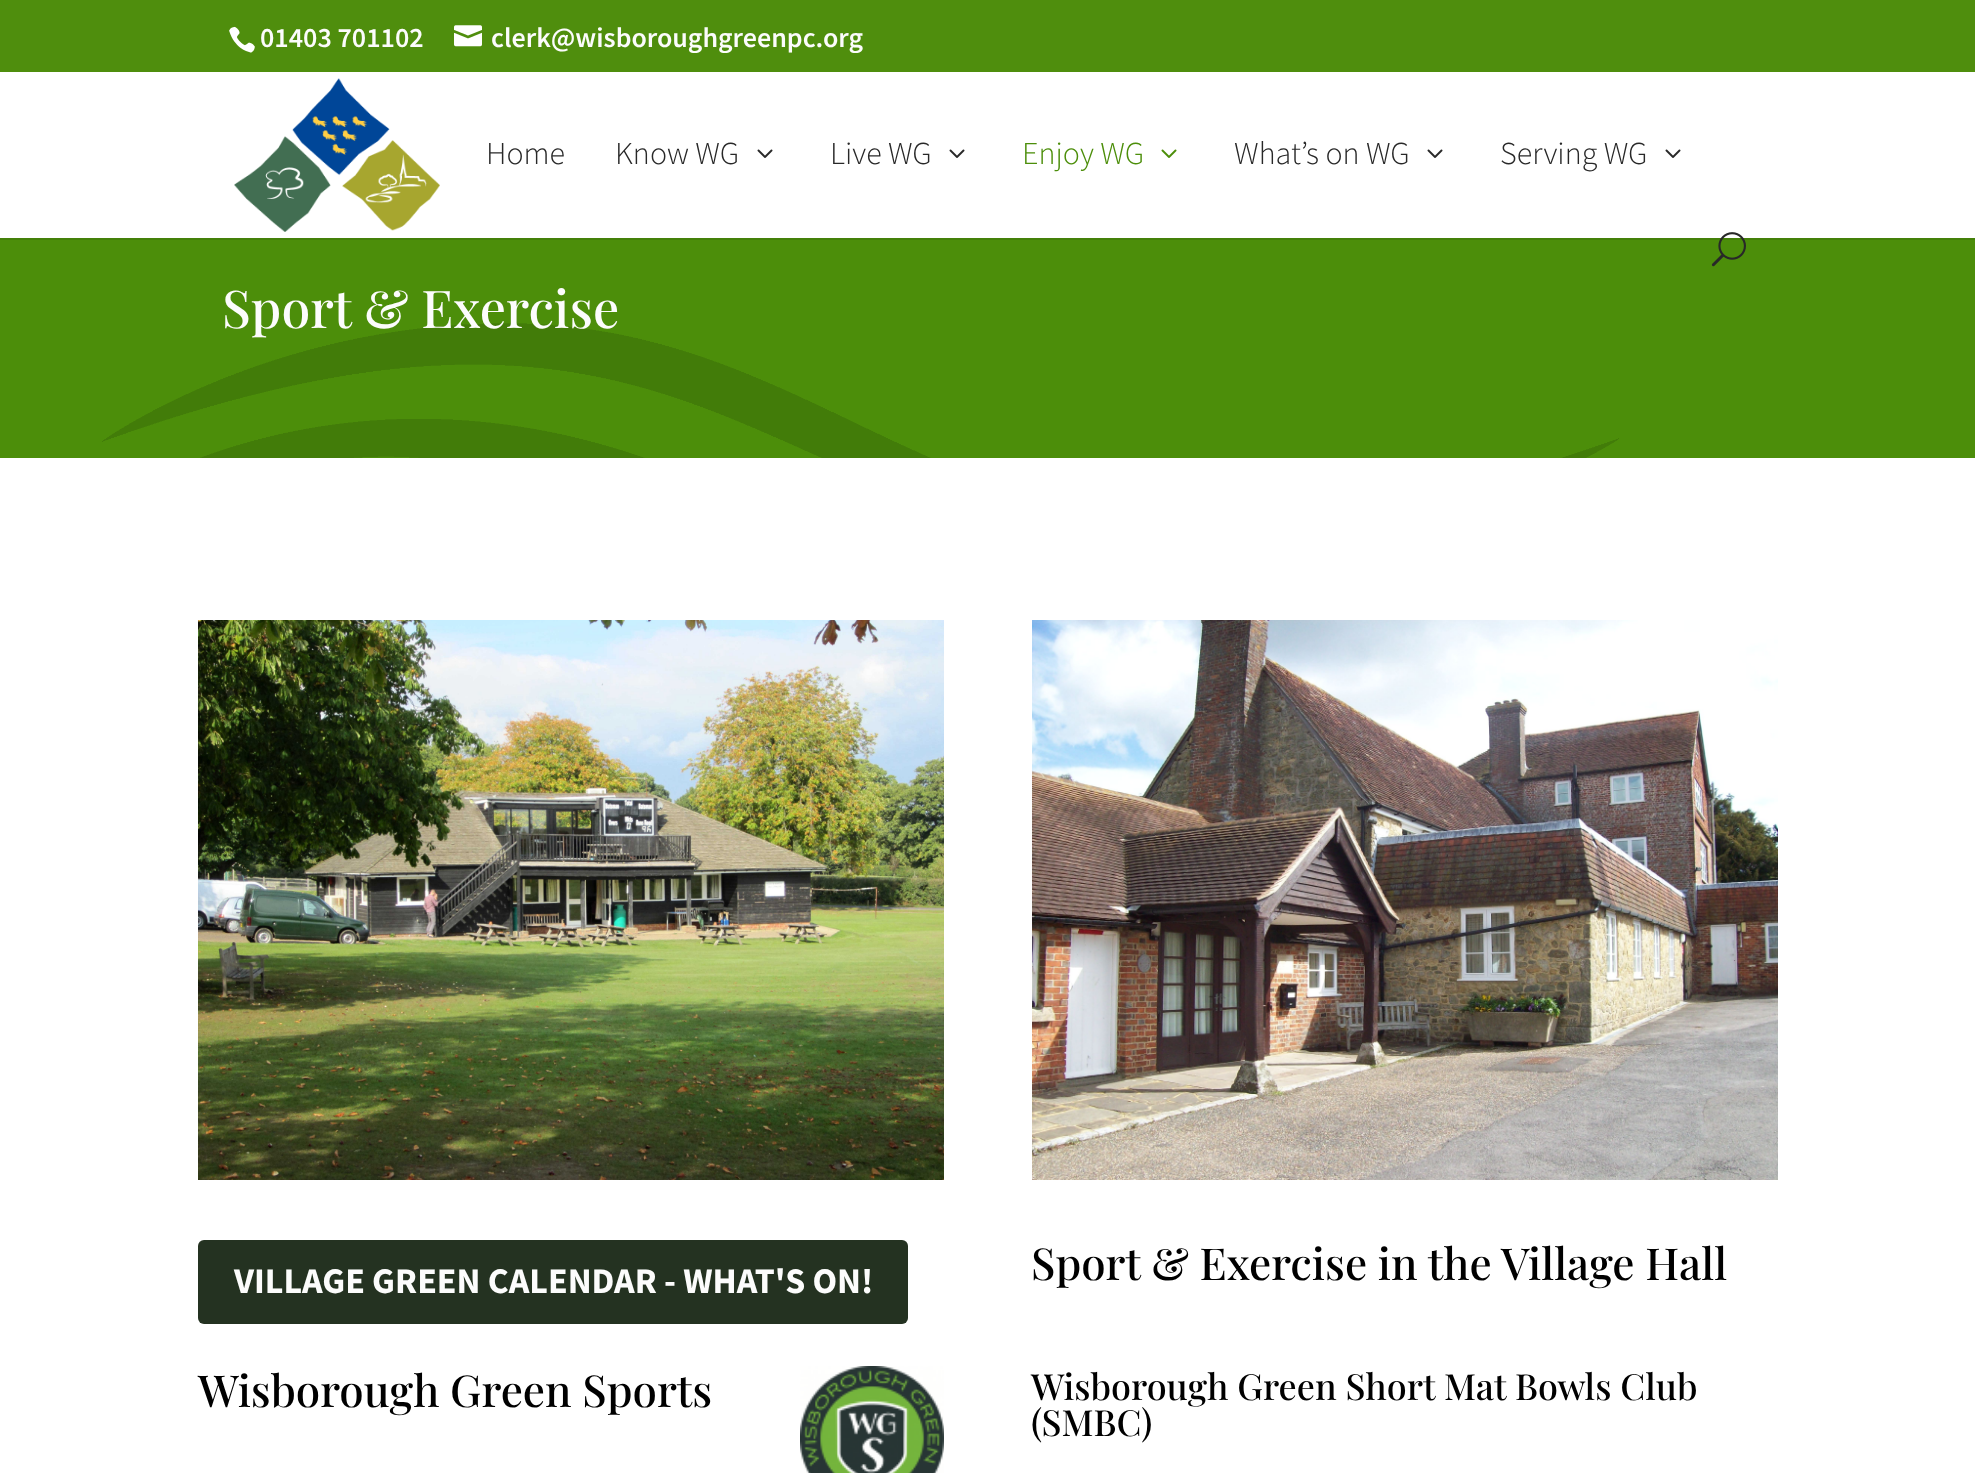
(async () => {
  const canvas = document.querySelector("canvas");
  canvas.width = 1975;
  canvas.height = 1473;
  const ctx = canvas.getContext("2d");
  ctx.miterLimit = 4;
  ctx.fontKerning = "normal";
  async function loadImage(src) {
    const img = new Image();
    img.src = src;
    await img.decode();
    return img;
  }

  ctx.fillStyle = "#ffffff";
  ctx.fillRect(0, 0, 1975, 1473);
  ctx.fillStyle = "#4f8e0d";
  ctx.fillRect(0, 0, 1975, 72);
  ctx.drawImage(await loadImage("img/1.png"), 229, 26, 26, 27);
  ctx.drawImage(await loadImage("img/2.png"), 454, 25, 28, 22);
  ctx.fillStyle = "#448009";
  ctx.fillRect(0, 238, 1975, 2);
  ctx.drawImage(await loadImage("img/3.png"), 234, 78, 206, 154);
  ctx.drawImage(await loadImage("img/4.png"), 757, 149, 16, 9);
  ctx.drawImage(await loadImage("img/4.png"), 949, 149, 16, 9);
  ctx.drawImage(await loadImage("img/5.png"), 1161, 149, 16, 9);
  ctx.drawImage(await loadImage("img/4.png"), 1427, 149, 16, 9);
  ctx.drawImage(await loadImage("img/4.png"), 1665, 149, 16, 9);
  ctx.drawImage(await loadImage("img/7.png"), 0, 240, 1975, 218);
  ctx.drawImage(await loadImage("img/6.png"), 1711, 232, 35, 35);
  ctx.drawImage(await loadImage("img/8.png"), 198, 620, 746, 560);
  ctx.fillStyle = "#243221";
  ctx.beginPath();
  ctx.roundRect(198, 1240, 710, 84, 6);
  ctx.fill();
  ctx.drawImage(await loadImage("img/9.png"), 800, 1366, 144, 107);
  ctx.drawImage(await loadImage("img/10.png"), 1032, 620, 746, 560);
  ctx.font = "600 28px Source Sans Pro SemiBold";
  ctx.fillStyle = "#fcfcfc";
  ctx.fillText("01403 701102", 260, 47);
  ctx.fillText("clerk@wisboroughgreenpc.org", 491, 47);
  ctx.font = "300 32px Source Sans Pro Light";
  ctx.fillStyle = "#282828";
  for (const [text, x, y] of [
    ["Home", 486, 164],
    ["Know WG", 615, 164],
    ["Live WG", 830, 164],
  ]) {
    ctx.fillText(text, x, y);
  }
  ctx.fillStyle = "#4c8e0a";
  ctx.fillText("Enjoy WG", 1022, 164);
  ctx.fillStyle = "#282828";
  ctx.fillText("What’s on WG", 1234, 164);
  ctx.fillText("Serving WG", 1500, 164);
  ctx.font = "500 52px Playfair Display";
  ctx.fillStyle = "#fcfcfc";
  ctx.fillText("Sport & Exercise", 222, 328);
  ctx.font = "bold 36px Source Sans Pro";
  ctx.fillText("VILLAGE GREEN CALENDAR - WHAT'S ON!", 234, 1293);
  ctx.font = "500 44px Playfair Display";
  ctx.fillStyle = "#000000";
  ctx.fillText("Wisborough Green Sports", 198, 1407);
  ctx.fillText("Sport & Exercise in the Village Hall", 1031, 1280);
  ctx.font = "500 36px Playfair Display";
  ctx.fillText("Wisborough Green Short Mat Bowls Club", 1031, 1400);
  ctx.fillText("(SMBC)", 1031, 1436);
})();
